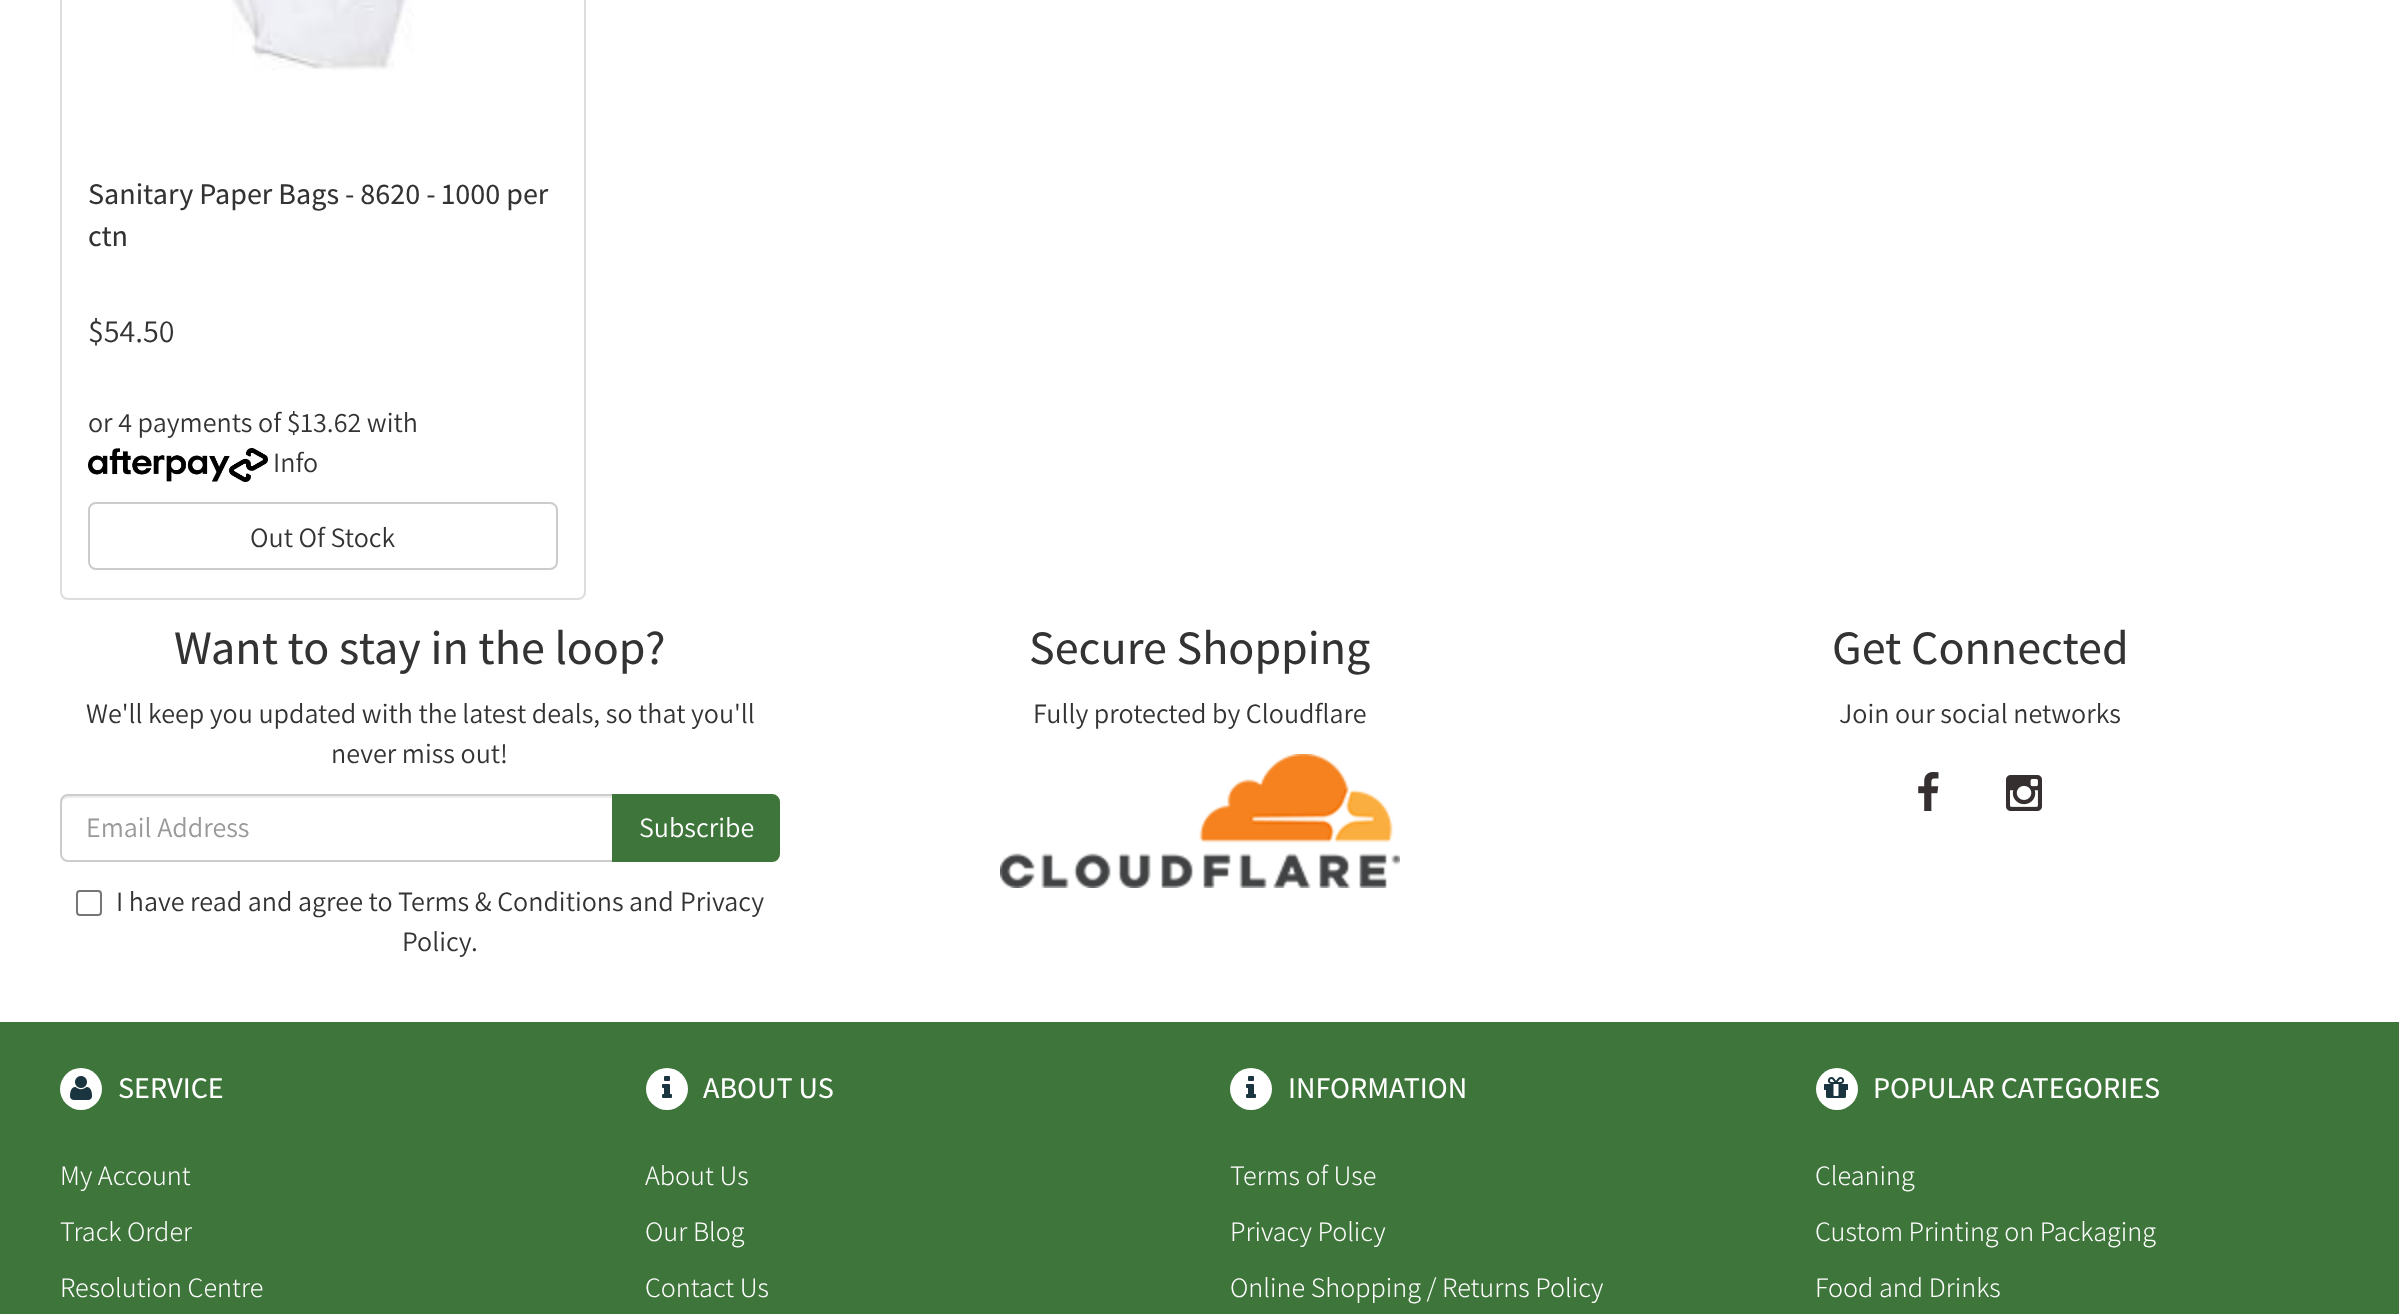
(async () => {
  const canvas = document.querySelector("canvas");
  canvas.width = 2399;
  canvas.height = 1314;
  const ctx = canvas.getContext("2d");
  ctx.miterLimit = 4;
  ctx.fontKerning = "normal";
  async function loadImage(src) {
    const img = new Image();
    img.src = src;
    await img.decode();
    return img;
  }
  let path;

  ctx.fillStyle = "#ffffff";
  ctx.fillRect(0, 0, 2399, 1314);
  ctx.beginPath();
  ctx.roundRect(61, -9, 524, 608, 7);
  ctx.strokeStyle = "#dddddd";
  ctx.lineWidth = 2;
  ctx.stroke();
  ctx.drawImage(await loadImage("img/1.png"), 231, 0, 183, 71);
  ctx.drawImage(await loadImage("img/2.png"), 88, 448, 180, 34);
  ctx.beginPath();
  ctx.roundRect(89, 503, 468, 66, 7);
  ctx.strokeStyle = "#cccccc";
  ctx.stroke();
  ctx.fillStyle = "#ececec";
  path = new Path2D("M68 798H612V796H68C65 796 62 799 62 802V804C62 801 65 798 68 798Z");
  ctx.fill(path);
  ctx.beginPath();
  ctx.roundRect(61, 795, 552, 66, [7, 0, 0, 7]);
  ctx.stroke();
  ctx.fillStyle = "#3e753a";
  ctx.beginPath();
  ctx.roundRect(613, 795, 166, 66, [0, 7, 7, 0]);
  ctx.fill();
  ctx.strokeStyle = "#3e753a";
  ctx.stroke();
  ctx.beginPath();
  ctx.roundRect(77, 891, 24, 24, 3);
  ctx.strokeStyle = "#767676";
  ctx.stroke();
  ctx.drawImage(await loadImage("img/3.png"), 1000, 754, 400, 134);
  ctx.drawImage(await loadImage("img/4.png"), 1918, 772, 21, 39);
  ctx.drawImage(await loadImage("img/5.png"), 2006, 775, 36, 36);
  ctx.fillRect(0, 1022, 2399, 292);
  ctx.fillStyle = "#ffffff";
  ctx.beginPath();
  ctx.arc(81, 1089, 21, 0, Math.PI * 2);
  ctx.fill();
  ctx.drawImage(await loadImage("img/6.png"), 70, 1076, 22, 24);
  ctx.beginPath();
  ctx.arc(667, 1089, 21, 0, Math.PI * 2);
  ctx.fill();
  ctx.drawImage(await loadImage("img/7.png"), 662, 1076, 10, 22);
  ctx.beginPath();
  ctx.arc(1251, 1089, 21, 0, Math.PI * 2);
  ctx.fill();
  ctx.drawImage(await loadImage("img/7.png"), 1246, 1076, 10, 22);
  ctx.beginPath();
  ctx.arc(1837, 1089, 21, 0, Math.PI * 2);
  ctx.fill();
  ctx.drawImage(await loadImage("img/8.png"), 1824, 1077, 24, 21);
  ctx.font = "500 30px Assistant";
  ctx.fillStyle = "#333333";
  ctx.fillText("Sanitary Paper Bags - 8620 - 1000 per", 88, 204);
  ctx.fillText("ctn", 88, 246);
  ctx.font = "32px Assistant";
  ctx.fillText("$54.50", 88, 342);
  ctx.font = "28px Assistant";
  for (const [text, x, y] of [
    ["or 4 payments of $13.62 with", 88, 432],
    ["Info", 273, 472],
    ["Out Of Stock", 250, 547],
  ]) {
    ctx.fillText(text, x, y);
  }
  ctx.font = "500 48px Assistant";
  ctx.fillText("Want to stay in the loop?", 174, 664);
  ctx.font = "28px Assistant";
  ctx.fillText("We'll keep you updated with the latest deals, so that you'll", 86, 723);
  ctx.fillText("never miss out!", 331, 763);
  ctx.fillStyle = "#999999";
  ctx.fillText("Email Address", 86, 837);
  ctx.fillStyle = "#ffffff";
  ctx.fillText("Subscribe", 639, 837);
  ctx.fillStyle = "#333333";
  for (const [text, x, y] of [
    ["I have read and agree to", 116, 911],
    ["Terms & Conditions", 398, 911],
    ["and", 629, 911],
    ["Privacy", 680, 911],
    ["Policy", 402, 951],
    [".", 471, 951],
  ]) {
    ctx.fillText(text, x, y);
  }
  ctx.font = "500 48px Assistant";
  ctx.fillText("Secure Shopping", 1029, 664);
  ctx.font = "28px Assistant";
  ctx.fillText("Fully protected by Cloudflare", 1033, 723);
  ctx.font = "500 48px Assistant";
  ctx.fillText("Get Connected", 1832, 664);
  ctx.font = "28px Assistant";
  ctx.fillText("Join our social networks", 1839, 723);
  ctx.font = "500 30px Assistant";
  ctx.fillStyle = "#ffffff";
  ctx.fillText("SERVICE", 118, 1098);
  ctx.font = "300 28px Assistant";
  for (const [text, x, y] of [
    ["My Account", 60, 1185],
    ["Track Order", 60, 1241],
    ["Resolution Centre", 60, 1297],
  ]) {
    ctx.fillText(text, x, y);
  }
  ctx.font = "500 30px Assistant";
  ctx.fillText("ABOUT US", 703, 1098);
  ctx.font = "300 28px Assistant";
  for (const [text, x, y] of [
    ["About Us", 645, 1185],
    ["Our Blog", 645, 1241],
    ["Contact Us", 645, 1297],
  ]) {
    ctx.fillText(text, x, y);
  }
  ctx.font = "500 30px Assistant";
  ctx.fillText("INFORMATION", 1288, 1098);
  ctx.font = "300 28px Assistant";
  for (const [text, x, y] of [
    ["Terms of Use", 1230, 1185],
    ["Privacy Policy", 1230, 1241],
    ["Online Shopping / Returns Policy", 1230, 1297],
  ]) {
    ctx.fillText(text, x, y);
  }
  ctx.font = "500 30px Assistant";
  ctx.fillText("POPULAR CATEGORIES", 1873, 1098);
  ctx.font = "300 28px Assistant";
  for (const [text, x, y] of [
    ["Cleaning", 1815, 1185],
    ["Custom Printing on Packaging", 1815, 1241],
    ["Food and Drinks", 1815, 1297],
  ]) {
    ctx.fillText(text, x, y);
  }
})();
